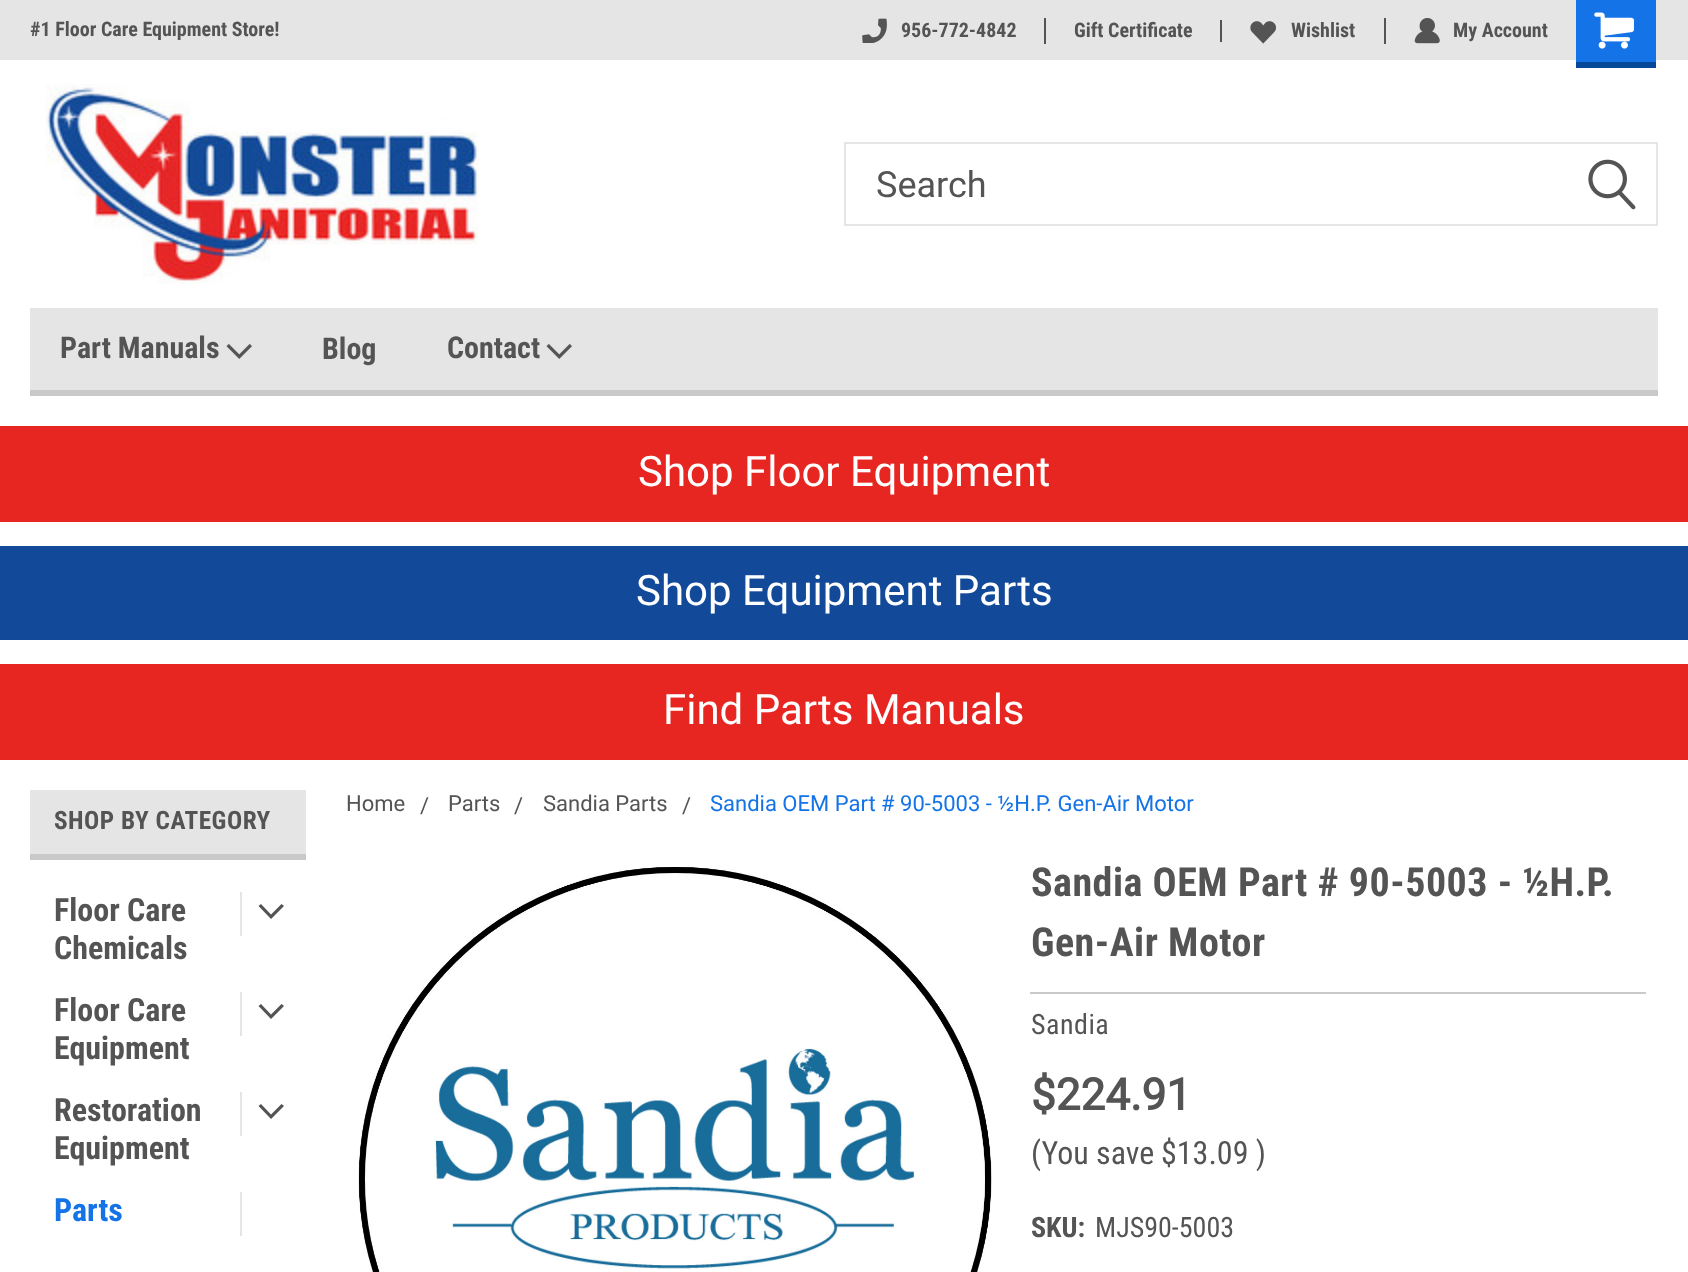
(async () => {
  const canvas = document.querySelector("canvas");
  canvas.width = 1688;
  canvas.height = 1272;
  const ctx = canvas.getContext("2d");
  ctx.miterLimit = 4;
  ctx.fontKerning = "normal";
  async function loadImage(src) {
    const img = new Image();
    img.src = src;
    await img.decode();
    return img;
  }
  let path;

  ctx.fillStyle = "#ffffff";
  ctx.fillRect(0, 0, 1688, 1272);
  ctx.fillStyle = "#e5e5e5";
  ctx.fillRect(0, 0, 1688, 60);
  ctx.fillStyle = "#545454";
  ctx.fillRect(1044, 18, 2, 26);
  ctx.drawImage(await loadImage("img/1.png"), 862, 18, 25, 25);
  ctx.fillRect(1220, 20, 2, 22);
  ctx.fillRect(1384, 18, 2, 26);
  ctx.drawImage(await loadImage("img/2.png"), 1250, 21, 26, 23);
  ctx.drawImage(await loadImage("img/3.png"), 1414, 18, 26, 26);
  ctx.fillStyle = "#1473e6";
  ctx.fillRect(1576, 0, 80, 62);
  ctx.fillStyle = "#074999";
  ctx.fillRect(1576, 62, 80, 6);
  ctx.drawImage(await loadImage("img/4.png"), 1594, 12, 40, 37);
  ctx.drawImage(await loadImage("img/5.png"), 45, 84, 434, 200);
  ctx.strokeStyle = "#e5e5e5";
  ctx.lineWidth = 2;
  ctx.strokeRect(845, 143, 812, 82);
  ctx.drawImage(await loadImage("img/6.png"), 1588, 159, 48, 51);
  ctx.fillStyle = "#e5e5e5";
  ctx.fillRect(30, 308, 1628, 82);
  ctx.fillStyle = "#c9c9c9";
  ctx.fillRect(30, 390, 1628, 6);
  ctx.drawImage(await loadImage("img/7.png"), 226, 344, 26, 15);
  ctx.drawImage(await loadImage("img/7.png"), 546, 344, 26, 15);
  for (const [x, y, w, h, color] of [
    [0, 426, 1688, 96, "#e82621"],
    [0, 546, 1688, 94, "#124a99"],
    [0, 664, 1688, 96, "#e82621"],
    [30, 790, 276, 64, "#e5e5e5"],
    [30, 854, 284, 6, "#c9c9c9"],
    [240, 892, 2, 44, "#e5e5e5"],
  ]) {
    ctx.fillStyle = color;
    ctx.fillRect(x, y, w, h);
  }
  ctx.fillStyle = "#545454";
  path = new Path2D("M284 906L271 919L258.5 906L261 904L271 914.5L281.5 904Z");
  ctx.fill(path);
  ctx.fillStyle = "#e5e5e5";
  ctx.fillRect(240, 992, 2, 44);
  ctx.fillStyle = "#545454";
  path = new Path2D("M284 1006L271 1019L258.5 1006L261 1004L271 1014.5L281.5 1004Z");
  ctx.fill(path);
  ctx.fillStyle = "#e5e5e5";
  ctx.fillRect(240, 1092, 2, 44);
  ctx.fillStyle = "#545454";
  path = new Path2D("M284 1106L271 1119L258.5 1106L261 1104L271 1114.5L281.5 1104Z");
  ctx.fill(path);
  ctx.fillStyle = "#e5e5e5";
  ctx.fillRect(240, 1192, 2, 44);
  ctx.fillStyle = "#ffffff";
  ctx.fillRect(306, 854, 8, 6);
  ctx.drawImage(await loadImage("img/8.png"), 358, 867, 634, 405);
  ctx.fillStyle = "#c9c9c9";
  ctx.fillRect(1030, 992, 616, 2);
  ctx.font = "bold 20px Roboto Condensed";
  ctx.fillStyle = "#545454";
  for (const [text, x, y] of [
    ["#1 Floor Care Equipment Store!", 30, 36],
    ["956-772-4842", 901, 37],
    ["Gift Certificate", 1074, 37],
    ["Wishlist", 1291, 37],
    ["My Account", 1453, 37],
  ]) {
    ctx.fillText(text, x, y);
  }
  ctx.font = "36px Roboto";
  ctx.fillText("Search", 876, 197);
  ctx.font = "bold 30px Roboto Condensed";
  for (const [text, x, y] of [
    ["Part Manuals", 60, 358],
    ["Blog", 322, 359],
    ["Contact", 447, 358],
  ]) {
    ctx.fillText(text, x, y);
  }
  ctx.font = "42px Roboto";
  ctx.fillStyle = "#ffffff";
  for (const [text, x, y] of [
    ["Shop Floor Equipment", 638, 486],
    ["Shop Equipment Parts", 636, 605],
    ["Find Parts Manuals", 663, 724],
  ]) {
    ctx.fillText(text, x, y);
  }
  ctx.letterSpacing = "0.5px";
  ctx.font = "bold 25.25px Roboto Condensed";
  ctx.fillStyle = "#545454";
  ctx.fillText("SHOP BY CATEGORY", 54, 829);
  ctx.letterSpacing = "0px";
  ctx.font = "bold 32px Roboto Condensed";
  for (const [text, x, y] of [
    ["Floor Care", 54, 921],
    ["Chemicals", 54, 959],
    ["Floor Care", 54, 1021],
    ["Equipment", 54, 1059],
    ["Restoration", 54, 1121],
    ["Equipment", 54, 1159],
  ]) {
    ctx.fillText(text, x, y);
  }
  ctx.fillStyle = "#1473e6";
  ctx.fillText("Parts", 54, 1221);
  ctx.font = "22px Roboto";
  ctx.fillStyle = "#545454";
  for (const [text, x, y] of [
    ["Home", 346, 811],
    ["/", 420, 813],
    ["Parts", 448, 811],
    ["/", 514, 813],
    ["Sandia Parts", 543, 811],
    ["/", 682, 813],
  ]) {
    ctx.fillText(text, x, y);
  }
  ctx.fillStyle = "#1473e6";
  ctx.fillText("Sandia OEM Part # 90-5003 - ½H.P. Gen-Air Motor", 710, 811);
  ctx.letterSpacing = "0.5px";
  ctx.font = "bold 40px Roboto Condensed";
  ctx.fillStyle = "#545454";
  ctx.fillText("Sandia OEM Part # 90-5003 - ½H.P.", 1031, 896);
  ctx.fillText("Gen-Air Motor", 1031, 956);
  ctx.font = "28px Roboto Condensed";
  ctx.fillText("Sandia", 1031, 1034);
  ctx.letterSpacing = "0px";
  ctx.font = "bold 44px Roboto";
  ctx.fillText("$224.91", 1031, 1110);
  ctx.font = "32px Roboto Condensed";
  ctx.fillText("(You save", 1031, 1164);
  ctx.fillText("$13.09 )", 1161, 1164);
  ctx.font = "bold 28px Roboto Condensed";
  ctx.fillText("SKU:", 1031, 1237);
  ctx.font = "28px Roboto Condensed";
  ctx.fillText("MJS90-5003", 1095, 1237);
})();
